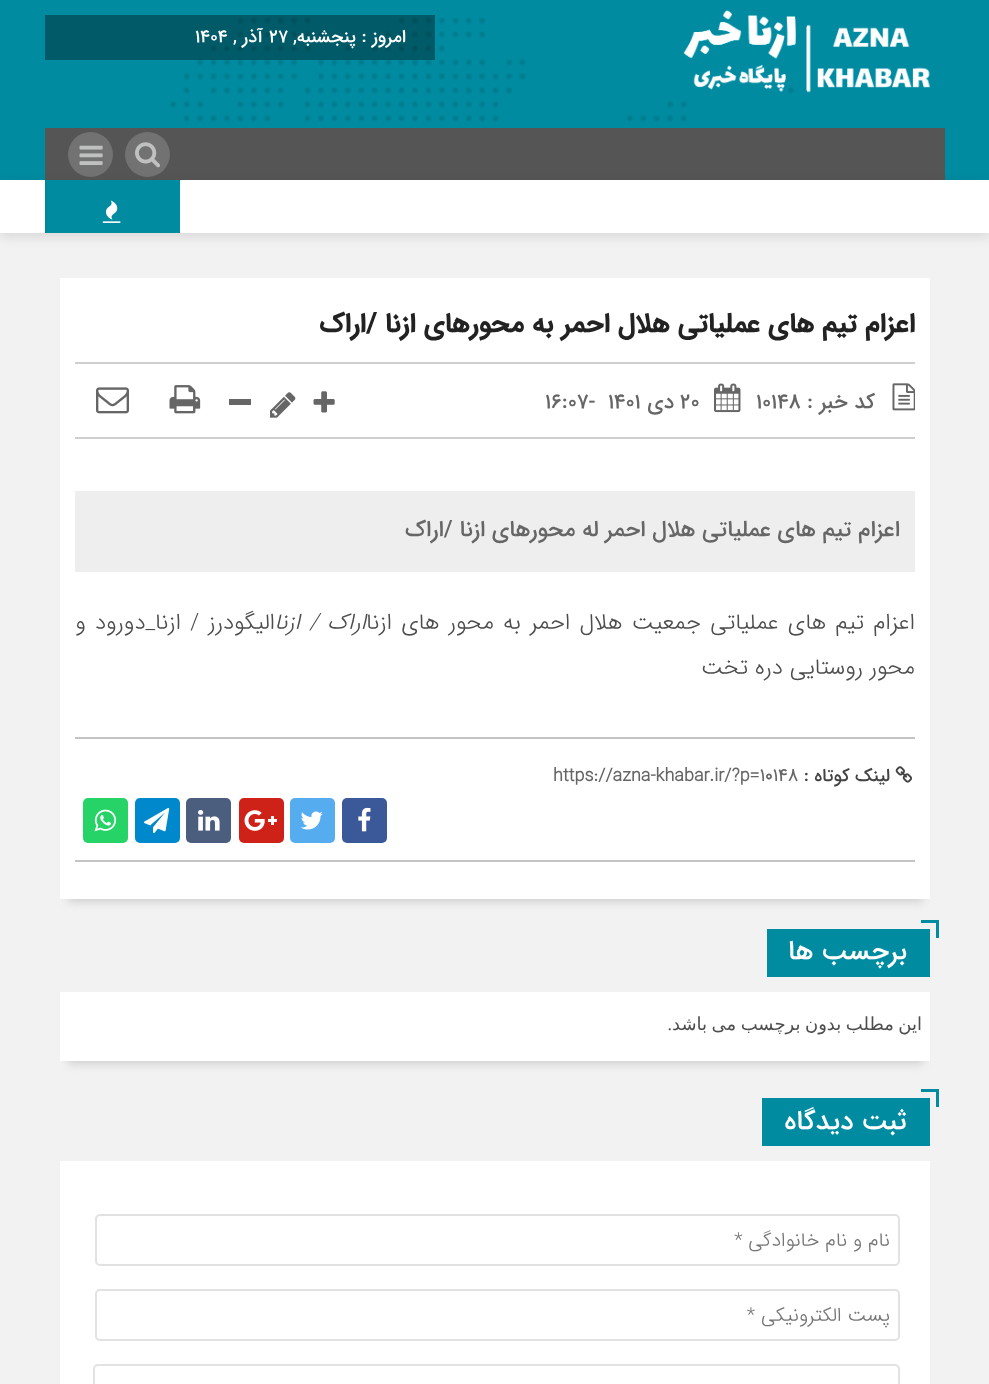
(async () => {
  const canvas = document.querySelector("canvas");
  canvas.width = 989;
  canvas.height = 1384;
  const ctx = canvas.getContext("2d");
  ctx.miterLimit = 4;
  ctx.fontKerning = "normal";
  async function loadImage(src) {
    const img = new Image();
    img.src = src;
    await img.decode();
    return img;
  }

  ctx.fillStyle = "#f2f2f2";
  ctx.fillRect(0, 0, 989, 1384);
  ctx.fillStyle = "#008ba0";
  ctx.fillRect(0, 0, 989, 180);
  ctx.drawImage(await loadImage("img/1.png"), 170, 17, 624, 105);
  ctx.drawImage(await loadImage("img/2.png"), 683, 10, 248, 83);
  ctx.fillStyle = "rgba(0, 0, 0, 0.35)";
  ctx.fillRect(45, 15, 390, 45);
  ctx.fillStyle = "#555555";
  ctx.fillRect(45, 128, 900, 52);
  ctx.fillStyle = "#727272";
  ctx.beginPath();
  ctx.arc(147.5, 154.5, 22.5, 0, Math.PI * 2);
  ctx.fill();
  ctx.drawImage(await loadImage("img/3.png"), 135, 142, 25, 26);
  ctx.beginPath();
  ctx.arc(90.5, 154.5, 22.5, 0, Math.PI * 2);
  ctx.fill();
  ctx.drawImage(await loadImage("img/4.png"), 79, 145, 24, 20);
  ctx.fillStyle = "rgba(0, 0, 0, 0.1)";
  ctx.filter = "blur(6px)";
  ctx.beginPath();
  ctx.rect(0, 185, 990, 52);
  ctx.fill();
  ctx.filter = "none";
  for (const [x, y, w, h, color] of [
    [0, 180, 989, 53, "#ffffff"],
    [47, 180, 133, 53, "#008ba0"],
    [45, 180, 2, 53, "#00879b"],
  ]) {
    ctx.fillStyle = color;
    ctx.fillRect(x, y, w, h);
  }
  ctx.drawImage(await loadImage("img/5.png"), 102, 200, 19, 23);
  ctx.fillStyle = "#cfcfcf";
  ctx.filter = "blur(4px)";
  ctx.beginPath();
  ctx.rect(68, 296, 855, 606);
  ctx.fill();
  ctx.filter = "none";
  for (const [x, y, w, h, color] of [
    [60, 278, 870, 621, "#ffffff"],
    [75, 362, 840, 2, "#cfcfcf"],
    [75, 437, 840, 2, "#cfcfcf"],
  ]) {
    ctx.fillStyle = color;
    ctx.fillRect(x, y, w, h);
  }
  ctx.drawImage(await loadImage("img/6.png"), 892, 383, 23, 28);
  ctx.drawImage(await loadImage("img/7.png"), 714, 383, 27, 30);
  ctx.drawImage(await loadImage("img/8.png"), 313, 391, 22, 22);
  ctx.drawImage(await loadImage("img/9.png"), 270, 392, 26, 26);
  ctx.fillStyle = "#666666";
  ctx.fillRect(229, 399, 22, 6);
  ctx.drawImage(await loadImage("img/10.png"), 169, 385, 32, 29);
  ctx.drawImage(await loadImage("img/11.png"), 96, 387, 33, 27);
  for (const [x, y, w, h, color] of [
    [75, 491, 840, 81, "#eeeeee"],
    [75, 737, 840, 2, "#c4c4c4"],
    [75, 860, 840, 2, "#c4c4c4"],
  ]) {
    ctx.fillStyle = color;
    ctx.fillRect(x, y, w, h);
  }
  ctx.drawImage(await loadImage("img/12.png"), 895, 766, 17, 17);
  ctx.fillStyle = "#3b5999";
  ctx.beginPath();
  ctx.roundRect(342, 798, 45, 45, 5);
  ctx.fill();
  ctx.drawImage(await loadImage("img/13.png"), 358, 807, 13, 25);
  ctx.fillStyle = "#55acee";
  ctx.beginPath();
  ctx.roundRect(290, 798, 45, 45, 5);
  ctx.fill();
  ctx.drawImage(await loadImage("img/14.png"), 300, 811, 23, 19);
  ctx.fillStyle = "#ce2118";
  ctx.beginPath();
  ctx.roundRect(239, 798, 45, 45, 5);
  ctx.fill();
  ctx.drawImage(await loadImage("img/15.png"), 244, 810, 33, 21);
  ctx.fillStyle = "#4c5e7d";
  ctx.beginPath();
  ctx.roundRect(186, 798, 45, 45, 5);
  ctx.fill();
  ctx.drawImage(await loadImage("img/16.png"), 198, 810, 22, 21);
  ctx.fillStyle = "#0088cc";
  ctx.beginPath();
  ctx.roundRect(135, 798, 45, 45, 5);
  ctx.fill();
  ctx.drawImage(await loadImage("img/17.png"), 144, 807, 26, 27);
  ctx.fillStyle = "#25d366";
  ctx.beginPath();
  ctx.roundRect(83, 798, 45, 45, 5);
  ctx.fill();
  ctx.drawImage(await loadImage("img/18.png"), 94, 809, 23, 23);
  for (const [x, y, w, h, color] of [
    [767, 929, 163, 48, "#008ba0"],
    [921, 920, 18, 3, "#008ba0"],
    [936, 920, 3, 18, "#008ba0"],
  ]) {
    ctx.fillStyle = color;
    ctx.fillRect(x, y, w, h);
  }
  ctx.fillStyle = "#cfcfcf";
  ctx.filter = "blur(4px)";
  ctx.beginPath();
  ctx.rect(68, 1010, 855, 54);
  ctx.fill();
  ctx.filter = "none";
  for (const [x, y, w, h, color] of [
    [60, 992, 870, 69, "#ffffff"],
    [762, 1098, 168, 48, "#008ba0"],
    [921, 1089, 18, 3, "#008ba0"],
    [936, 1089, 3, 18, "#008ba0"],
    [60, 1161, 870, 223, "#ffffff"],
  ]) {
    ctx.fillStyle = color;
    ctx.fillRect(x, y, w, h);
  }
  ctx.beginPath();
  ctx.roundRect(96, 1215, 803, 50, 4);
  ctx.strokeStyle = "#e2e2e2";
  ctx.lineWidth = 2;
  ctx.stroke();
  ctx.beginPath();
  ctx.roundRect(96, 1290, 803, 50, 4);
  ctx.stroke();
  ctx.beginPath();
  ctx.roundRect(94, 1365, 805, 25, 4);
  ctx.stroke();
  ctx.direction = "rtl";
  ctx.font = "500 18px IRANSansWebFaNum";
  ctx.fillText("امروز : پنجشنبه,", 406, 42);
  ctx.direction = "ltr";
  ctx.fillText("۲۷", 269, 42);
  ctx.direction = "rtl";
  ctx.fillText("آذر ,", 263, 42);
  ctx.direction = "ltr";
  ctx.fillText("۱۴۰۴", 195, 42);
  ctx.direction = "rtl";
  ctx.font = "bold 27px IRANSansWebFaNum";
  ctx.fillStyle = "#222222";
  ctx.fillText("اعزام تیم های عملیاتی هلال احمر به محورهای ازنا /اراک", 915, 332);
  ctx.font = "500 21px IRANSansWebFaNum";
  ctx.fillStyle = "#666666";
  ctx.fillText("کد خبر :", 875, 408);
  ctx.direction = "ltr";
  ctx.fillText("10148", 756, 408);
  ctx.fillText("20", 680, 408);
  ctx.direction = "rtl";
  ctx.fillText("دی", 674, 408);
  ctx.direction = "ltr";
  ctx.fillText("1401", 608, 408);
  ctx.fillText("16:07-", 545, 408);
  ctx.direction = "rtl";
  ctx.font = "500 22.5px IRANSansWebFaNum";
  ctx.fillText("اعزام تیم های عملیاتی هلال احمر له محورهای ازنا /اراک", 900, 536);
  ctx.wordSpacing = "2.4px";
  ctx.font = "300 22.5px IRANSansWebFaNum";
  ctx.fillStyle = "#4d4d4d";
  ctx.fillText("اعزام تیم های عملیاتی جمعیت هلال احمر به محور های ازنا", 915, 629);
  ctx.font = "italic 300 22.5px IRANSansWebFaNum";
  ctx.fillText("اراک / ازنا", 366, 629);
  ctx.font = "300 22.5px IRANSansWebFaNum";
  ctx.fillText("الیگودرز / ازنا_دورود و", 275, 629);
  ctx.wordSpacing = "0px";
  ctx.fillText("محور روستایی دره تخت", 915, 674);
  ctx.font = "500 18px IRANSansWebFaNum";
  ctx.fillStyle = "#444444";
  ctx.fillText("لینک کوتاه :", 890, 781);
  ctx.direction = "ltr";
  ctx.font = "bold 18px 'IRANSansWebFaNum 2'";
  ctx.fillStyle = "#666666";
  ctx.fillText("https://azna-khabar.ir/?p=10148", 553, 781);
  ctx.direction = "rtl";
  ctx.font = "500 27px IRANSansWebFaNum";
  ctx.fillStyle = "#ffffff";
  ctx.fillText("برچسب ها", 907, 959);
  ctx.wordSpacing = "-1.25px";
  ctx.font = "18px DejaVu Sans";
  ctx.fillStyle = "#4d4d4d";
  ctx.fillText("این مطلب بدون برچسب می باشد", 922, 1030);
  ctx.wordSpacing = "0px";
  ctx.font = "18px Liberation Serif";
  ctx.fillText(".", 672, 1030);
  ctx.font = "500 27px IRANSansWebFaNum";
  ctx.fillStyle = "#ffffff";
  ctx.fillText("ثبت دیدگاه", 907, 1129);
  ctx.font = "300 19.5px IRANSansWebFaNum";
  ctx.fillStyle = "#757575";
  ctx.fillText("نام و نام خانوادگی *", 890, 1246);
  ctx.fillText("پست الکترونیکی *", 890, 1321);
})();
